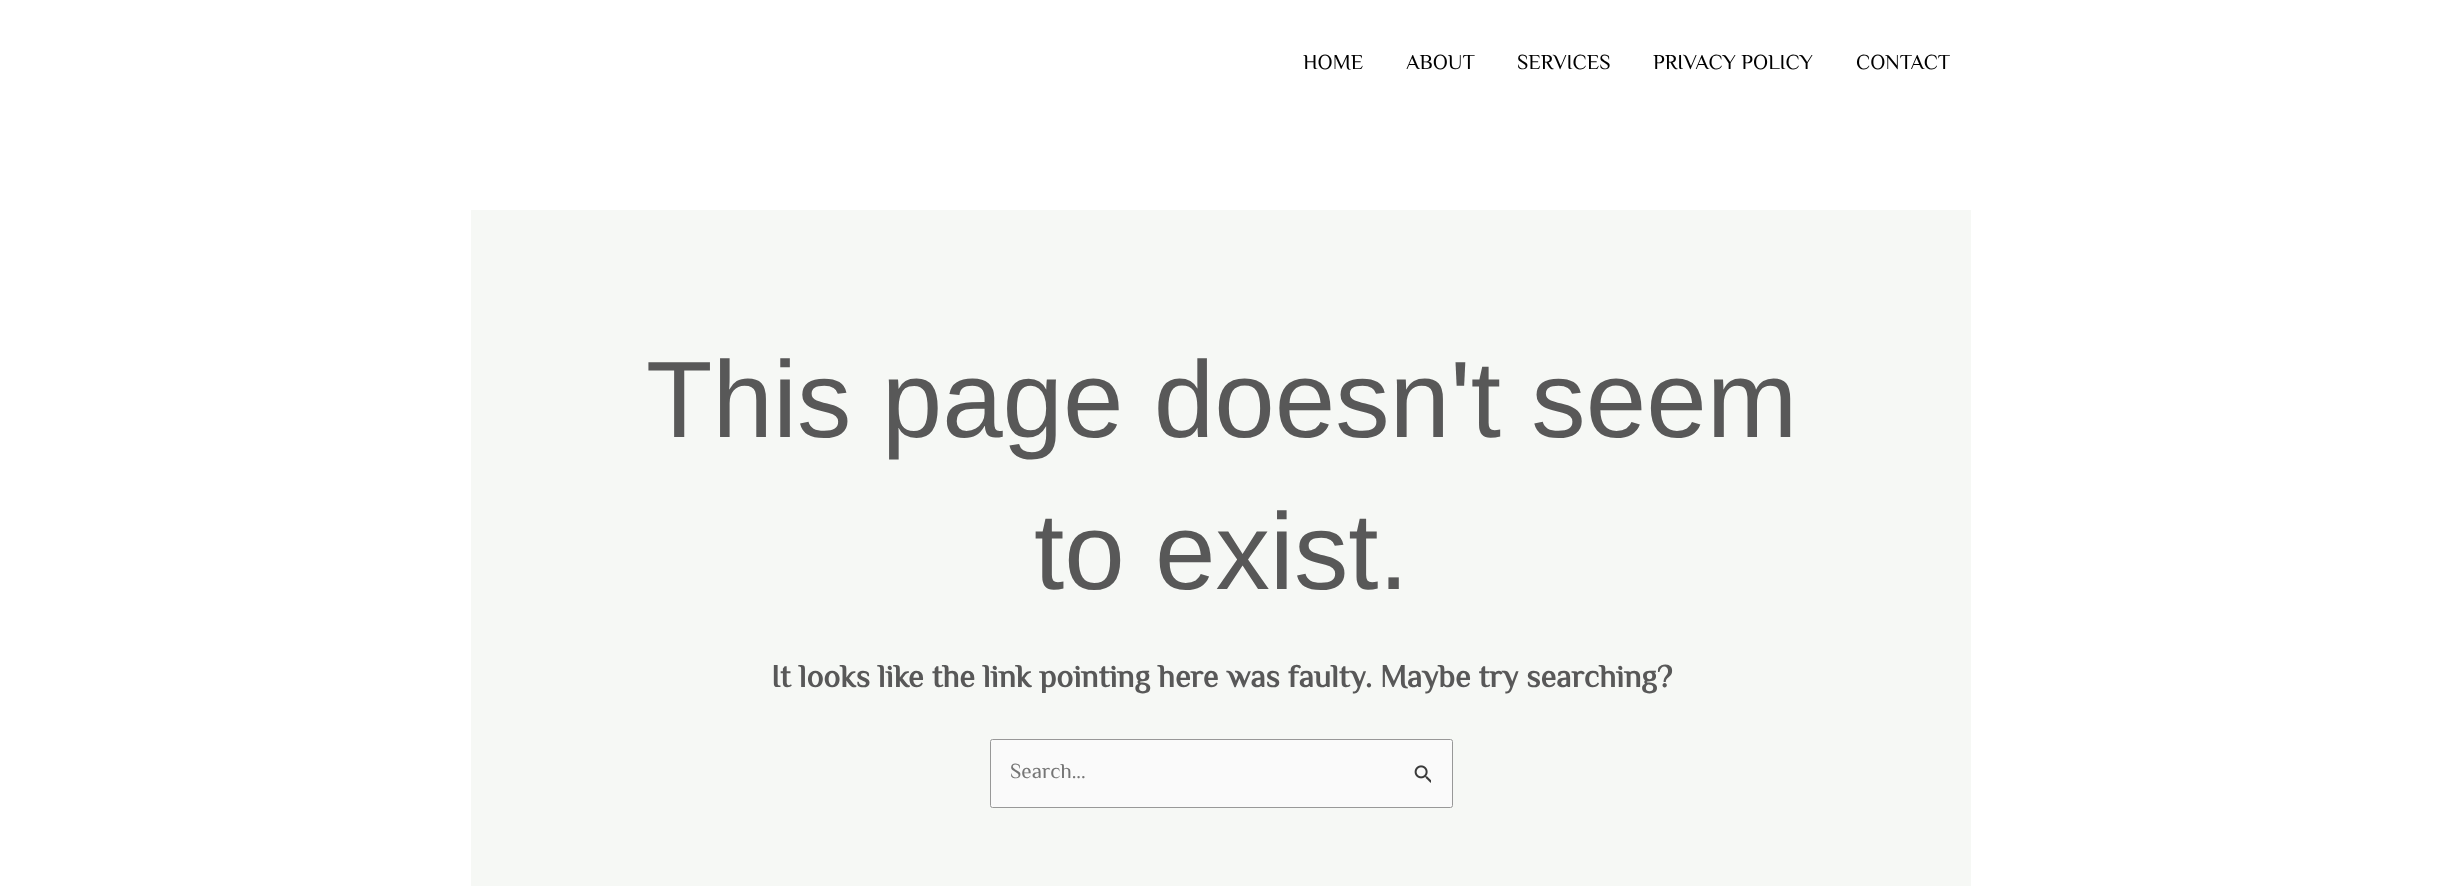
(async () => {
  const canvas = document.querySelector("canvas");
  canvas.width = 2442;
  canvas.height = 886;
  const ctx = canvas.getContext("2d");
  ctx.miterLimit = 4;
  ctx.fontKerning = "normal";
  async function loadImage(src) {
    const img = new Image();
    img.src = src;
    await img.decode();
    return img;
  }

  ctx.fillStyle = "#ffffff";
  ctx.fillRect(0, 0, 2442, 886);
  ctx.fillStyle = "#f6f8f5";
  ctx.fillRect(471, 210, 1500, 676);
  ctx.fillStyle = "#fafafa";
  ctx.beginPath();
  ctx.roundRect(990.5, 739.5, 462, 68, 2);
  ctx.fill();
  ctx.strokeStyle = "#989898";
  ctx.stroke();
  ctx.drawImage(await loadImage("img/1.png"), 1414, 765, 17, 18);
  ctx.font = "21.25px Philosopher";
  ctx.fillStyle = "#000000";
  for (const [text, x, y] of [
    ["HOME", 1303, 69],
    ["ABOUT", 1406, 69],
    ["SERVICES", 1517, 69],
    ["PRIVACY POLICY", 1653, 69],
    ["CONTACT", 1856, 69],
  ]) {
    ctx.fillText(text, x, y);
  }
  ctx.font = "108.75px Liberation Sans";
  ctx.fillStyle = "#585858";
  ctx.fillText("This page doesn't seem", 646, 437);
  ctx.fillText("to exist.", 1034, 589);
  ctx.font = "bold 31.9px Philosopher";
  ctx.fillText("It looks like the link pointing here was faulty. Maybe try searching?", 771, 687);
  ctx.font = "21.25px Philosopher";
  ctx.fillStyle = "#757575";
  ctx.fillText("Search...", 1010, 778);
})();
